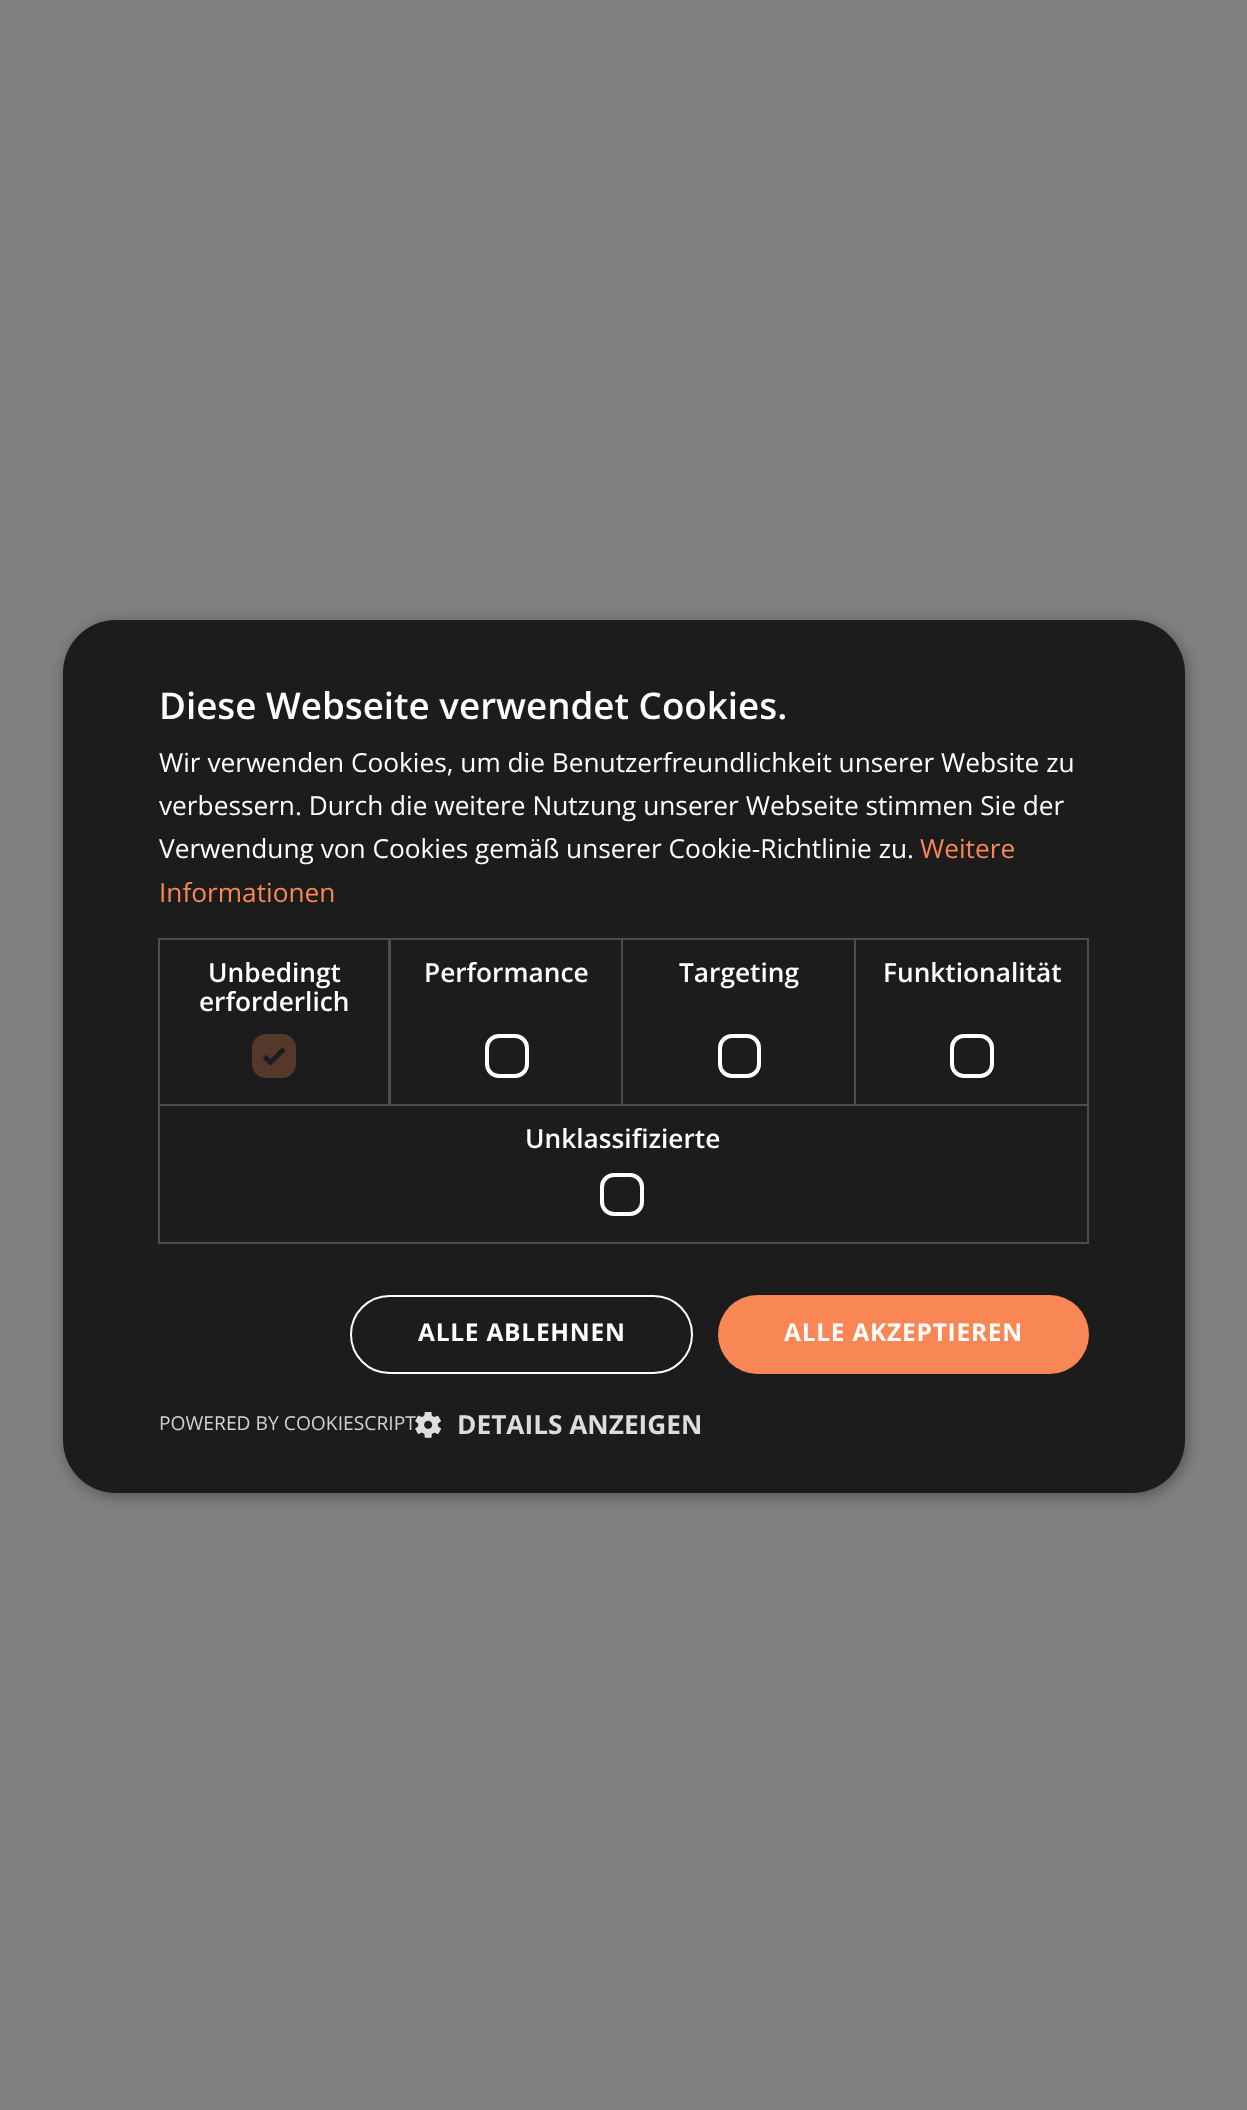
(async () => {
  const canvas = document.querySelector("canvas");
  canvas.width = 1247;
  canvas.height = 2110;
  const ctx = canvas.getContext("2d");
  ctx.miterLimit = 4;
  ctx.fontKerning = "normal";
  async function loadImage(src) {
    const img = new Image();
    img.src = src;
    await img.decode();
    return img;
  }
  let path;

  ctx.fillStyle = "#7e817e";
  ctx.fillRect(0, 0, 1247, 2110);
  ctx.fillStyle = "rgba(0, 0, 0, 0.35)";
  ctx.filter = "blur(7px)";
  ctx.beginPath();
  ctx.roundRect(65, 623, 1122, 873, 53);
  ctx.fill();
  ctx.filter = "none";
  ctx.fillStyle = "#1c1c1c";
  ctx.beginPath();
  ctx.roundRect(63, 620, 1122, 873, 53);
  ctx.fill();
  ctx.strokeStyle = "#4d4d4d";
  ctx.lineWidth = 2;
  ctx.strokeRect(159, 939, 230, 166);
  ctx.fillStyle = "#55382b";
  ctx.beginPath();
  ctx.roundRect(252, 1034, 44, 44, 14);
  ctx.fill();
  path = new Path2D("M264.5 1056.5L270.5 1062.5L284 1049");
  ctx.strokeStyle = "#1c1c1c";
  ctx.lineWidth = 4.6;
  ctx.stroke(path);
  ctx.strokeStyle = "#4d4d4d";
  ctx.lineWidth = 2;
  ctx.strokeRect(390, 939, 232, 166);
  ctx.beginPath();
  ctx.roundRect(487, 1036, 40, 40, 12);
  ctx.strokeStyle = "#ffffff";
  ctx.lineWidth = 4;
  ctx.stroke();
  ctx.strokeStyle = "#4d4d4d";
  ctx.lineWidth = 2;
  ctx.strokeRect(622, 939, 233, 166);
  ctx.beginPath();
  ctx.roundRect(720, 1036, 39, 40, 12);
  ctx.strokeStyle = "#ffffff";
  ctx.lineWidth = 4;
  ctx.stroke();
  ctx.strokeStyle = "#4d4d4d";
  ctx.lineWidth = 2;
  ctx.strokeRect(855, 939, 233, 166);
  ctx.beginPath();
  ctx.roundRect(952, 1036, 40, 40, 12);
  ctx.strokeStyle = "#ffffff";
  ctx.lineWidth = 4;
  ctx.stroke();
  ctx.strokeStyle = "#4d4d4d";
  ctx.lineWidth = 2;
  ctx.strokeRect(159, 1105, 929, 138);
  ctx.beginPath();
  ctx.roundRect(602, 1175, 40, 39, 12);
  ctx.strokeStyle = "#ffffff";
  ctx.lineWidth = 4;
  ctx.stroke();
  ctx.beginPath();
  ctx.roundRect(351, 1296, 341, 77, 38.5);
  ctx.lineWidth = 2;
  ctx.stroke();
  ctx.fillStyle = "#f98755";
  ctx.beginPath();
  ctx.roundRect(718, 1295, 371, 79, 39.5);
  ctx.fill();
  ctx.drawImage(await loadImage("img/1.png"), 415, 1412, 26, 26);
  ctx.font = "600 36.75px Open Sans";
  ctx.fillStyle = "#ffffff";
  ctx.fillText("Diese Webseite verwendet Cookies.", 159, 719);
  ctx.font = "26.25px Open Sans";
  for (const [text, x, y] of [
    ["Wir verwenden Cookies, um die Benutzerfreundlichkeit unserer Website zu", 159, 772],
    ["verbessern. Durch die weitere Nutzung unserer Webseite stimmen Sie der", 159, 815],
    ["Verwendung von Cookies gemäß unserer Cookie-Richtlinie zu.", 159, 858],
  ]) {
    ctx.fillText(text, x, y);
  }
  ctx.fillStyle = "#f98755";
  ctx.fillText("Weitere", 920, 858);
  ctx.fillText("Informationen", 159, 902);
  ctx.font = "600 26.25px Open Sans";
  ctx.fillStyle = "#ffffff";
  for (const [text, x, y] of [
    ["Unbedingt", 208, 982],
    ["erforderlich", 199, 1011],
    ["Performance", 424, 982],
    ["Targeting", 679, 982],
    ["Funktionalität", 883, 982],
    ["Unklassifizierte", 525, 1148],
  ]) {
    ctx.fillText(text, x, y);
  }
  ctx.letterSpacing = "0.75px";
  ctx.font = "bold 24.5px Open Sans";
  ctx.fillText("ALLE ABLEHNEN", 418, 1341);
  ctx.fillText("ALLE AKZEPTIEREN", 784, 1341);
  ctx.letterSpacing = "0px";
  ctx.font = "19.25px Open Sans";
  ctx.fillStyle = "#d2d2d2";
  ctx.fillText("POWERED BY COOKIESCRIPT", 159, 1430);
  ctx.font = "bold 26.25px Open Sans";
  ctx.fillStyle = "#dddddd";
  ctx.fillText("DETAILS ANZEIGEN", 457, 1434);
})();
